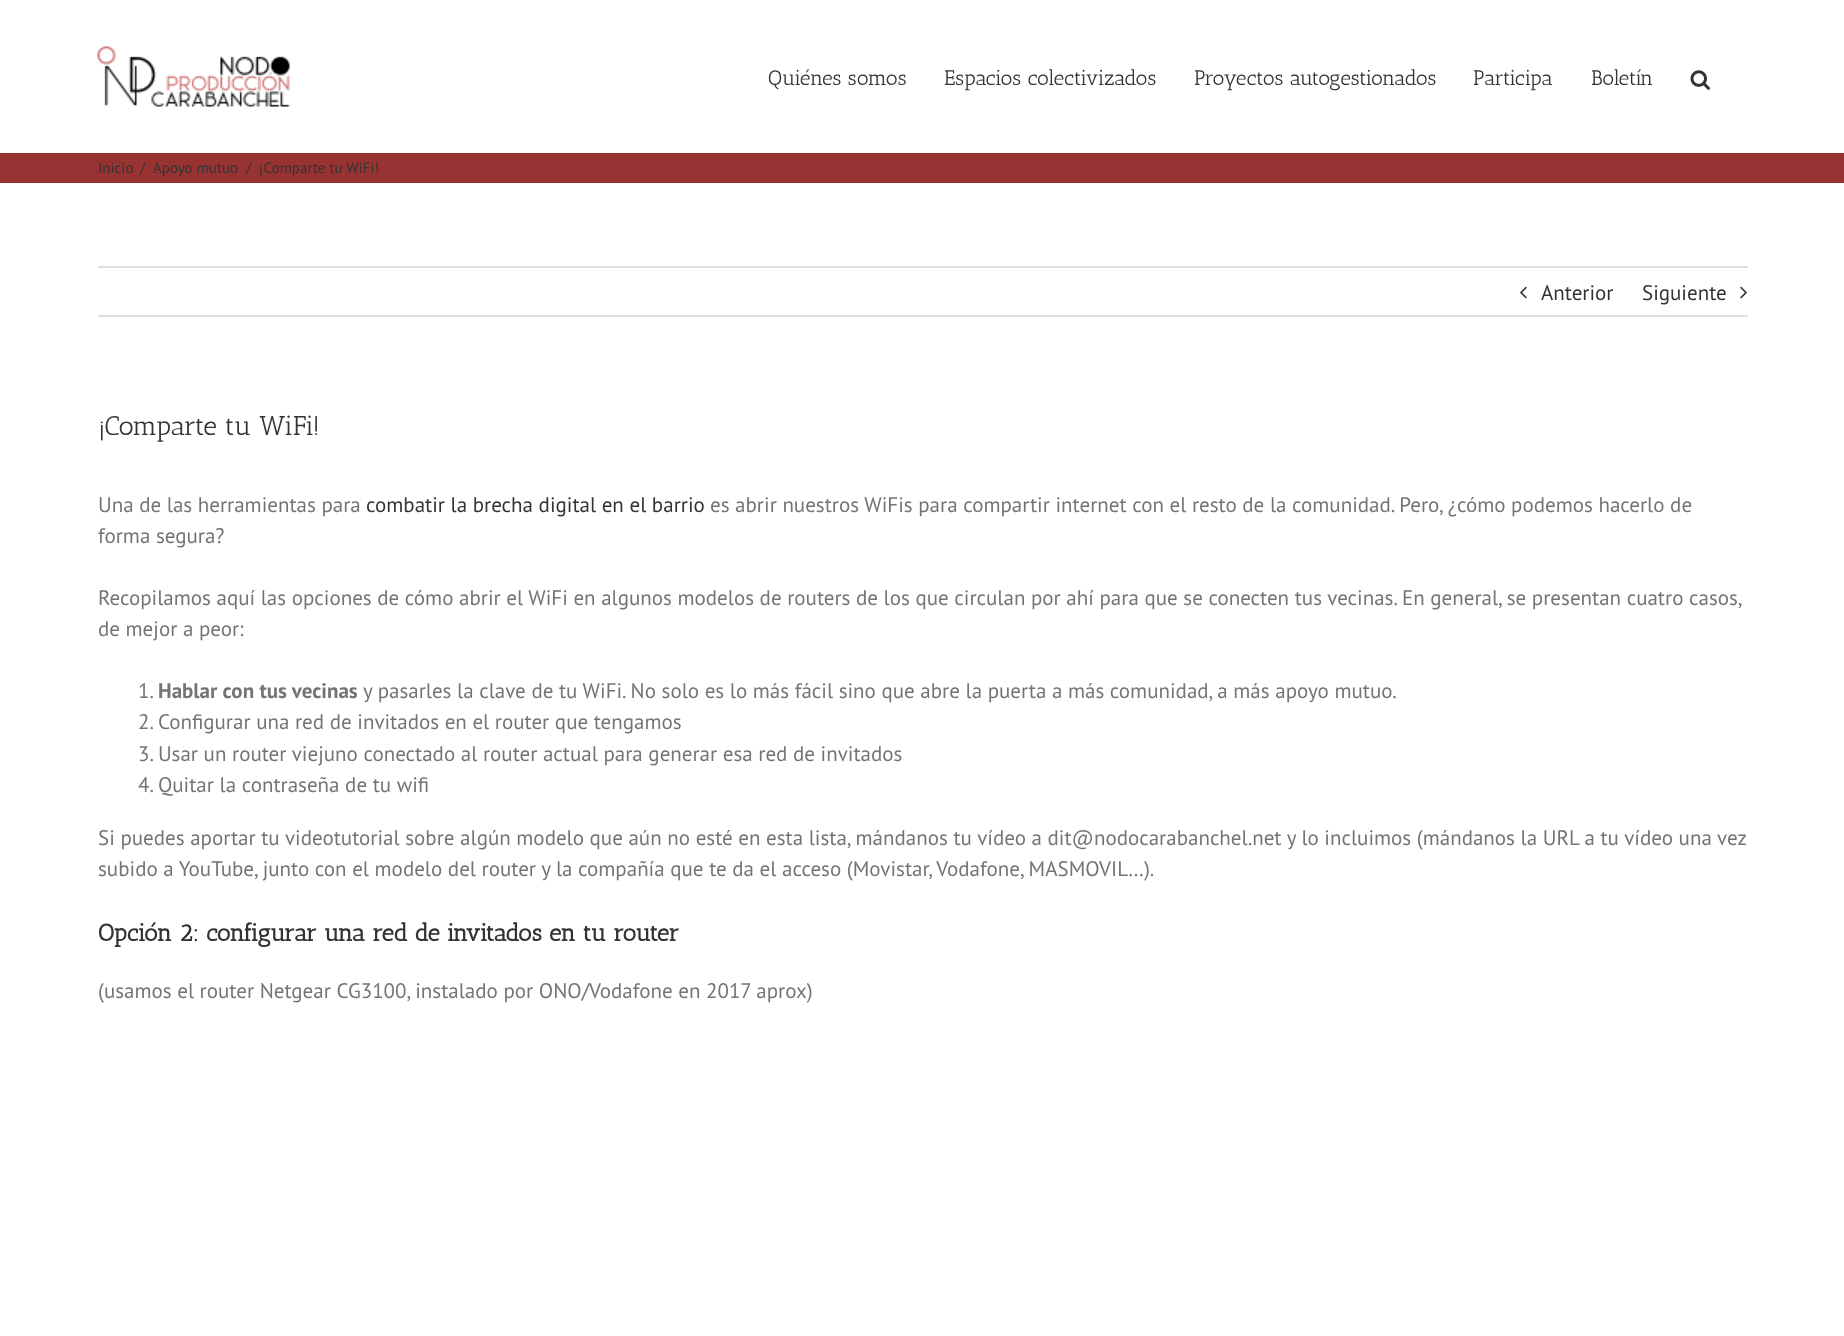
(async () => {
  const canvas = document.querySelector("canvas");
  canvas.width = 1844;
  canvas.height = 1336;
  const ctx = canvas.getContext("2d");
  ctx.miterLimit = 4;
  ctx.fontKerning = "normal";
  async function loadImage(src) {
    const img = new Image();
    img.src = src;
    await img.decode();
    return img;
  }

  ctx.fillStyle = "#ffffff";
  ctx.fillRect(0, 0, 1844, 1336);
  ctx.drawImage(await loadImage("img/1.png"), 97, 46, 193, 61);
  ctx.drawImage(await loadImage("img/2.png"), 1690, 70, 20, 20);
  for (const [x, y, w, h, color] of [
    [0, 153, 1844, 30, "#993333"],
    [98, 266, 1650, 2, "#e0dede"],
    [98, 315, 1650, 2, "#e0dede"],
  ]) {
    ctx.fillStyle = color;
    ctx.fillRect(x, y, w, h);
  }
  ctx.drawImage(await loadImage("img/3.png"), 1520, 286, 7, 13);
  ctx.drawImage(await loadImage("img/4.png"), 1740, 286, 7, 13);
  ctx.font = "21px Antic Slab";
  ctx.fillStyle = "#333333";
  for (const [text, x, y] of [
    ["Quiénes somos", 768, 85],
    ["Espacios colectivizados", 944, 85],
    ["Proyectos autogestionados", 1194, 85],
    ["Participa", 1473, 85],
    ["Boletín", 1591, 85],
  ]) {
    ctx.fillText(text, x, y);
  }
  ctx.font = "15px PT Sans";
  for (const [text, x, y] of [
    ["Inicio", 98, 173],
    ["/", 140, 173],
    ["Apoyo mutuo", 153, 173],
    ["/", 246, 173],
    ["¡Comparte tu WiFi!", 259, 173],
  ]) {
    ctx.fillText(text, x, y);
  }
  ctx.font = "21px PT Sans";
  ctx.fillText("Anterior", 1541, 300);
  ctx.fillText("Siguiente", 1642, 300);
  ctx.font = "27px Antic Slab";
  ctx.fillText("¡Comparte tu WiFi!", 98, 435);
  ctx.font = "21px PT Sans";
  ctx.fillStyle = "#747474";
  ctx.fillText("Una de las herramientas para", 98, 512);
  ctx.fillStyle = "#333333";
  ctx.fillText("combatir la brecha digital en el barrio", 366, 512);
  ctx.fillStyle = "#747474";
  for (const [text, x, y] of [
    ["es abrir nuestros WiFis para compartir internet con el resto de la comunidad. Pero, ¿cómo podemos hacerlo de", 710, 512],
    ["forma segura?", 98, 543],
    ["Recopilamos aquí las opciones de cómo abrir el WiFi en algunos modelos de routers de los que circulan por ahí para que se conecten tus vecinas. En general, se presentan cuatro casos,", 98, 605],
    ["de mejor a peor:", 98, 636],
    ["1.", 138, 698],
  ]) {
    ctx.fillText(text, x, y);
  }
  ctx.font = "bold 21px PT Sans";
  ctx.fillText("Hablar con tus vecinas", 158, 698);
  ctx.font = "21px PT Sans";
  for (const [text, x, y] of [
    ["y pasarles la clave de tu WiFi. No solo es lo más fácil sino que abre la puerta a más comunidad, a más apoyo mutuo.", 363, 698],
    ["2. Configurar una red de invitados en el router que tengamos", 138, 729],
    ["3. Usar un router viejuno conectado al router actual para generar esa red de invitados", 138, 761],
    ["4. Quitar la contraseña de tu wifi", 138, 792],
    ["Si puedes aportar tu videotutorial sobre algún modelo que aún no esté en esta lista, mándanos tu vídeo a dit@nodocarabanchel.net y lo incluimos (mándanos la URL a tu vídeo una vez", 98, 845],
    ["subido a YouTube, junto con el modelo del router y la compañía que te da el acceso (Movistar, Vodafone, MASMOVIL…).", 98, 876],
  ]) {
    ctx.fillText(text, x, y);
  }
  ctx.font = "bold 24px Antic Slab";
  ctx.fillStyle = "#333333";
  ctx.fillText("Opción 2: configurar una red de invitados en tu router", 98, 941);
  ctx.font = "21px PT Sans";
  ctx.fillStyle = "#747474";
  ctx.fillText("(usamos el router Netgear CG3100, instalado por ONO/Vodafone en 2017 aprox)", 98, 998);
})();
